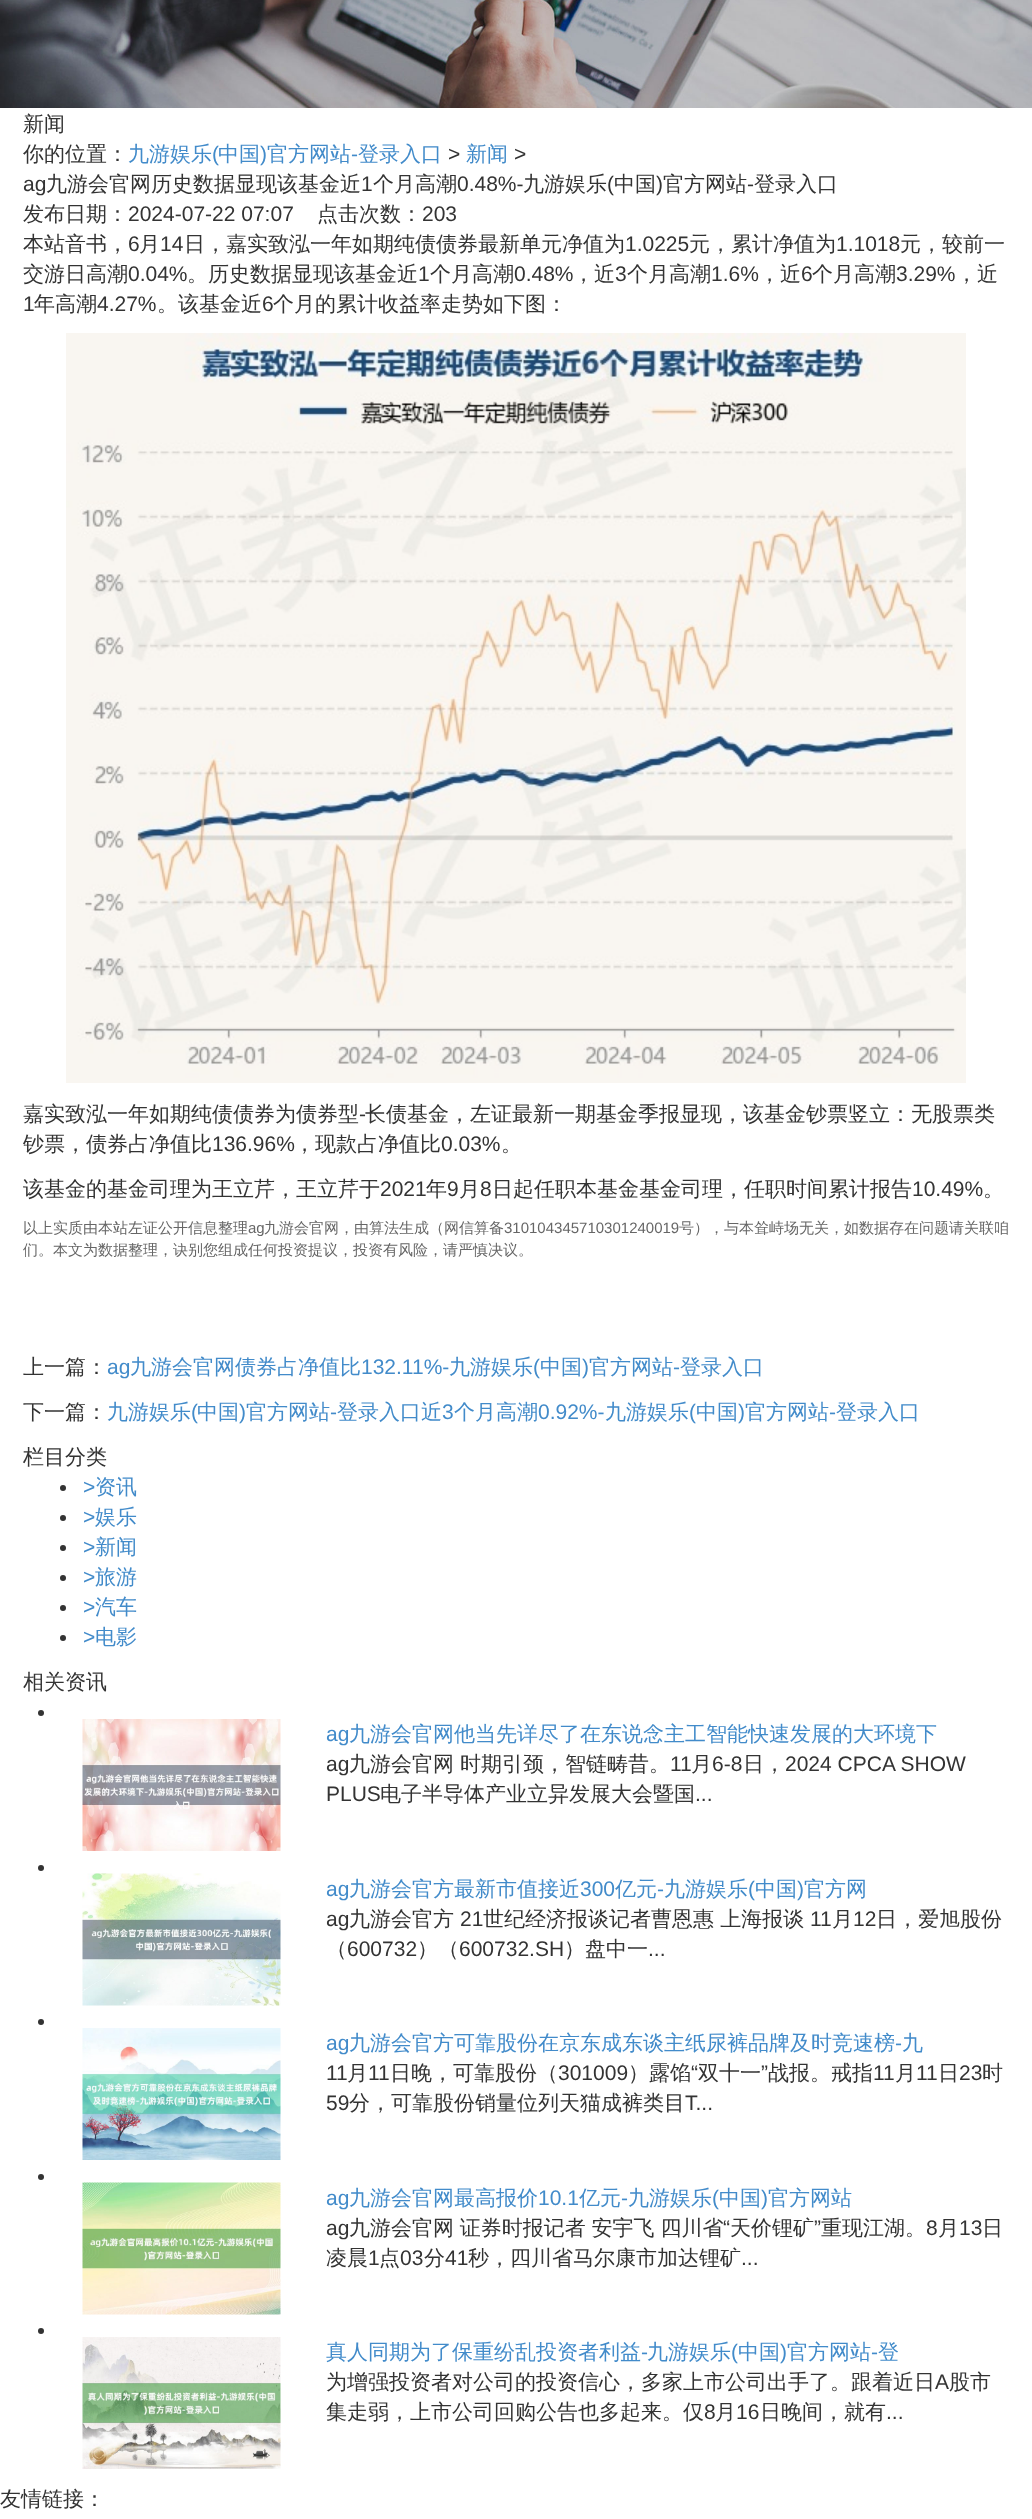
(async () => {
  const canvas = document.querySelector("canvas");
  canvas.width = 1032;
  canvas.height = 2519;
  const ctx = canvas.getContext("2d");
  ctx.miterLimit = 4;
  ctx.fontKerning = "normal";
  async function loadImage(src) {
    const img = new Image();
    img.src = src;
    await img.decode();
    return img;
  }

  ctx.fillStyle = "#ffffff";
  ctx.fillRect(0, 0, 1032, 2519);
  ctx.drawImage(await loadImage("img/1.png"), 0, 0, 1032, 108);
  ctx.drawImage(await loadImage("img/2.png"), 66, 333, 900, 750);
  ctx.fillStyle = "#333333";
  ctx.beginPath();
  ctx.arc(63, 1488, 3, 0, Math.PI * 2);
  ctx.fill();
  ctx.beginPath();
  ctx.arc(63, 1518, 3, 0, Math.PI * 2);
  ctx.fill();
  ctx.beginPath();
  ctx.arc(63, 1548, 3, 0, Math.PI * 2);
  ctx.fill();
  ctx.beginPath();
  ctx.arc(63, 1578, 3, 0, Math.PI * 2);
  ctx.fill();
  ctx.beginPath();
  ctx.arc(63, 1608, 3, 0, Math.PI * 2);
  ctx.fill();
  ctx.beginPath();
  ctx.arc(63, 1638, 3, 0, Math.PI * 2);
  ctx.fill();
  ctx.beginPath();
  ctx.arc(41, 1713, 3, 0, Math.PI * 2);
  ctx.fill();
  ctx.drawImage(await loadImage("img/3.png"), 82, 1719, 199, 132);
  ctx.beginPath();
  ctx.arc(41, 1868, 3, 0, Math.PI * 2);
  ctx.fill();
  ctx.drawImage(await loadImage("img/4.png"), 82, 1873, 199, 133);
  ctx.beginPath();
  ctx.arc(41, 2022, 3, 0, Math.PI * 2);
  ctx.fill();
  ctx.drawImage(await loadImage("img/5.png"), 82, 2028, 199, 132);
  ctx.beginPath();
  ctx.arc(41, 2177, 3, 0, Math.PI * 2);
  ctx.fill();
  ctx.drawImage(await loadImage("img/6.png"), 82, 2182, 199, 133);
  ctx.beginPath();
  ctx.arc(41, 2331, 3, 0, Math.PI * 2);
  ctx.fill();
  ctx.drawImage(await loadImage("img/7.png"), 82, 2337, 199, 132);
  ctx.font = "500 21px WenQuanYi Zen Hei";
  ctx.fillText("新闻", 23, 131);
  ctx.fillText("你的位置：", 23, 161);
  ctx.fillStyle = "#428bca";
  ctx.fillText("九游娱乐", 128, 161);
  ctx.font = "21px Liberation Sans";
  ctx.fillText("(", 212, 161);
  ctx.font = "500 21px WenQuanYi Zen Hei";
  ctx.fillText("中国", 218, 161);
  ctx.font = "21px Liberation Sans";
  ctx.fillText(")", 260, 161);
  ctx.font = "500 21px WenQuanYi Zen Hei";
  ctx.fillText("官方网站", 267, 161);
  ctx.font = "21px Liberation Sans";
  ctx.fillText("-", 351, 161);
  ctx.font = "500 21px WenQuanYi Zen Hei";
  ctx.fillText("登录入口", 358, 161);
  ctx.font = "21px Liberation Sans";
  ctx.fillStyle = "#333333";
  ctx.fillText(">", 448, 161);
  ctx.font = "500 21px WenQuanYi Zen Hei";
  ctx.fillStyle = "#428bca";
  ctx.fillText("新闻", 466, 161);
  ctx.font = "21px Liberation Sans";
  ctx.fillStyle = "#333333";
  ctx.fillText(">", 514, 161);
  ctx.fillText("ag", 23, 191);
  ctx.font = "500 21px WenQuanYi Zen Hei";
  ctx.fillText("九游会官网历史数据显现该基金近", 46, 191);
  ctx.font = "21px Liberation Sans";
  ctx.fillText("1", 361, 191);
  ctx.font = "500 21px WenQuanYi Zen Hei";
  ctx.fillText("个月高潮", 373, 191);
  ctx.font = "21px Liberation Sans";
  ctx.fillText("0.48%-", 457, 191);
  ctx.font = "500 21px WenQuanYi Zen Hei";
  ctx.fillText("九游娱乐", 523, 191);
  ctx.font = "21px Liberation Sans";
  ctx.fillText("(", 607, 191);
  ctx.font = "500 21px WenQuanYi Zen Hei";
  ctx.fillText("中国", 614, 191);
  ctx.font = "21px Liberation Sans";
  ctx.fillText(")", 656, 191);
  ctx.font = "500 21px WenQuanYi Zen Hei";
  ctx.fillText("官方网站", 663, 191);
  ctx.font = "21px Liberation Sans";
  ctx.fillText("-", 747, 191);
  ctx.font = "500 21px WenQuanYi Zen Hei";
  ctx.fillText("登录入口", 754, 191);
  ctx.fillText("发布日期：", 23, 221);
  ctx.font = "21px Liberation Sans";
  ctx.fillText("2024-07-22 07:07", 128, 221);
  ctx.font = "500 21px WenQuanYi Zen Hei";
  ctx.fillText("点击次数：", 317, 221);
  ctx.font = "21px Liberation Sans";
  ctx.fillText("203", 422, 221);
  ctx.font = "500 21px WenQuanYi Zen Hei";
  ctx.fillText("本站音书，", 23, 251);
  ctx.font = "21px Liberation Sans";
  ctx.fillText("6", 128, 251);
  ctx.font = "500 21px WenQuanYi Zen Hei";
  ctx.fillText("月", 139, 251);
  ctx.font = "21px Liberation Sans";
  ctx.fillText("14", 160, 251);
  ctx.font = "500 21px WenQuanYi Zen Hei";
  ctx.fillText("日，嘉实致泓一年如期纯债债券最新单元净值为", 184, 251);
  ctx.font = "21px Liberation Sans";
  ctx.fillText("1.0225", 625, 251);
  ctx.font = "500 21px WenQuanYi Zen Hei";
  ctx.fillText("元，累计净值为", 689, 251);
  ctx.font = "21px Liberation Sans";
  ctx.fillText("1.1018", 836, 251);
  ctx.font = "500 21px WenQuanYi Zen Hei";
  ctx.fillText("元，较前一", 900, 251);
  ctx.fillText("交游日高潮", 23, 281);
  ctx.font = "21px Liberation Sans";
  ctx.fillText("0.04%", 128, 281);
  ctx.font = "500 21px WenQuanYi Zen Hei";
  ctx.fillText("。历史数据显现该基金近", 187, 281);
  ctx.font = "21px Liberation Sans";
  ctx.fillText("1", 418, 281);
  ctx.font = "500 21px WenQuanYi Zen Hei";
  ctx.fillText("个月高潮", 430, 281);
  ctx.font = "21px Liberation Sans";
  ctx.fillText("0.48%", 514, 281);
  ctx.font = "500 21px WenQuanYi Zen Hei";
  ctx.fillText("，近", 573, 281);
  ctx.font = "21px Liberation Sans";
  ctx.fillText("3", 615, 281);
  ctx.font = "500 21px WenQuanYi Zen Hei";
  ctx.fillText("个月高潮", 627, 281);
  ctx.font = "21px Liberation Sans";
  ctx.fillText("1.6%", 711, 281);
  ctx.font = "500 21px WenQuanYi Zen Hei";
  ctx.fillText("，近", 759, 281);
  ctx.font = "21px Liberation Sans";
  ctx.fillText("6", 801, 281);
  ctx.font = "500 21px WenQuanYi Zen Hei";
  ctx.fillText("个月高潮", 812, 281);
  ctx.font = "21px Liberation Sans";
  ctx.fillText("3.29%", 896, 281);
  ctx.font = "500 21px WenQuanYi Zen Hei";
  ctx.fillText("，近", 956, 281);
  ctx.font = "21px Liberation Sans";
  ctx.fillText("1", 23, 311);
  ctx.font = "500 21px WenQuanYi Zen Hei";
  ctx.fillText("年高潮", 34, 311);
  ctx.font = "21px Liberation Sans";
  ctx.fillText("4.27%", 97, 311);
  ctx.font = "500 21px WenQuanYi Zen Hei";
  ctx.fillText("。该基金近", 157, 311);
  ctx.font = "21px Liberation Sans";
  ctx.fillText("6", 262, 311);
  ctx.font = "500 21px WenQuanYi Zen Hei";
  ctx.fillText("个月的累计收益率走势如下图：", 273, 311);
  ctx.fillText("嘉实致泓一年如期纯债债券为债券型", 23, 1121);
  ctx.font = "21px Liberation Sans";
  ctx.fillText("-", 359, 1121);
  ctx.font = "500 21px WenQuanYi Zen Hei";
  ctx.fillText("长债基金，左证最新一期基金季报显现，该基金钞票竖立：无股票类", 365, 1121);
  ctx.fillText("钞票，债券占净值比", 23, 1151);
  ctx.font = "21px Liberation Sans";
  ctx.fillText("136.96%", 212, 1151);
  ctx.font = "500 21px WenQuanYi Zen Hei";
  ctx.fillText("，现款占净值比", 294, 1151);
  ctx.font = "21px Liberation Sans";
  ctx.fillText("0.03%", 441, 1151);
  ctx.font = "500 21px WenQuanYi Zen Hei";
  ctx.fillText("。", 501, 1151);
  ctx.fillText("该基金的基金司理为王立芹，王立芹于", 23, 1196);
  ctx.font = "21px Liberation Sans";
  ctx.fillText("2021", 380, 1196);
  ctx.font = "500 21px WenQuanYi Zen Hei";
  ctx.fillText("年", 426, 1196);
  ctx.font = "21px Liberation Sans";
  ctx.fillText("9", 447, 1196);
  ctx.font = "500 21px WenQuanYi Zen Hei";
  ctx.fillText("月", 459, 1196);
  ctx.font = "21px Liberation Sans";
  ctx.fillText("8", 480, 1196);
  ctx.font = "500 21px WenQuanYi Zen Hei";
  ctx.fillText("日起任职本基金基金司理，任职时间累计报告", 492, 1196);
  ctx.font = "21px Liberation Sans";
  ctx.fillText("10.49%", 912, 1196);
  ctx.font = "500 21px WenQuanYi Zen Hei";
  ctx.fillText("。", 983, 1196);
  ctx.font = "500 15px WenQuanYi Zen Hei";
  ctx.fillStyle = "#666666";
  ctx.fillText("以上实质由本站左证公开信息整理", 23, 1233);
  ctx.font = "15px Liberation Sans";
  ctx.fillText("ag", 248, 1233);
  ctx.font = "500 15px WenQuanYi Zen Hei";
  ctx.fillText("九游会官网，由算法生成（网信算备", 264, 1233);
  ctx.font = "15px Liberation Sans";
  ctx.fillText("310104345710301240019", 504, 1233);
  ctx.font = "500 15px WenQuanYi Zen Hei";
  ctx.fillText("号），与本耸峙场无关，如数据存在问题请关联咱", 679, 1233);
  ctx.fillText("们。本文为数据整理，诀别您组成任何投资提议，投资有风险，请严慎决议。", 23, 1255);
  ctx.font = "500 21px WenQuanYi Zen Hei";
  ctx.fillStyle = "#333333";
  ctx.fillText("上一篇：", 23, 1374);
  ctx.font = "21px Liberation Sans";
  ctx.fillStyle = "#428bca";
  ctx.fillText("ag", 107, 1374);
  ctx.font = "500 21px WenQuanYi Zen Hei";
  ctx.fillText("九游会官网债券占净值比", 130, 1374);
  ctx.font = "21px Liberation Sans";
  ctx.fillText("132.11%-", 361, 1374);
  ctx.font = "500 21px WenQuanYi Zen Hei";
  ctx.fillText("九游娱乐", 449, 1374);
  ctx.font = "21px Liberation Sans";
  ctx.fillText("(", 533, 1374);
  ctx.font = "500 21px WenQuanYi Zen Hei";
  ctx.fillText("中国", 540, 1374);
  ctx.font = "21px Liberation Sans";
  ctx.fillText(")", 582, 1374);
  ctx.font = "500 21px WenQuanYi Zen Hei";
  ctx.fillText("官方网站", 589, 1374);
  ctx.font = "21px Liberation Sans";
  ctx.fillText("-", 673, 1374);
  ctx.font = "500 21px WenQuanYi Zen Hei";
  ctx.fillText("登录入口", 680, 1374);
  ctx.fillStyle = "#333333";
  ctx.fillText("下一篇：", 23, 1419);
  ctx.fillStyle = "#428bca";
  ctx.fillText("九游娱乐", 107, 1419);
  ctx.font = "21px Liberation Sans";
  ctx.fillText("(", 191, 1419);
  ctx.font = "500 21px WenQuanYi Zen Hei";
  ctx.fillText("中国", 197, 1419);
  ctx.font = "21px Liberation Sans";
  ctx.fillText(")", 239, 1419);
  ctx.font = "500 21px WenQuanYi Zen Hei";
  ctx.fillText("官方网站", 246, 1419);
  ctx.font = "21px Liberation Sans";
  ctx.fillText("-", 330, 1419);
  ctx.font = "500 21px WenQuanYi Zen Hei";
  ctx.fillText("登录入口近", 337, 1419);
  ctx.font = "21px Liberation Sans";
  ctx.fillText("3", 442, 1419);
  ctx.font = "500 21px WenQuanYi Zen Hei";
  ctx.fillText("个月高潮", 454, 1419);
  ctx.font = "21px Liberation Sans";
  ctx.fillText("0.92%-", 538, 1419);
  ctx.font = "500 21px WenQuanYi Zen Hei";
  ctx.fillText("九游娱乐", 605, 1419);
  ctx.font = "21px Liberation Sans";
  ctx.fillText("(", 689, 1419);
  ctx.font = "500 21px WenQuanYi Zen Hei";
  ctx.fillText("中国", 696, 1419);
  ctx.font = "21px Liberation Sans";
  ctx.fillText(")", 738, 1419);
  ctx.font = "500 21px WenQuanYi Zen Hei";
  ctx.fillText("官方网站", 745, 1419);
  ctx.font = "21px Liberation Sans";
  ctx.fillText("-", 829, 1419);
  ctx.font = "500 21px WenQuanYi Zen Hei";
  ctx.fillText("登录入口", 836, 1419);
  ctx.fillStyle = "#333333";
  ctx.fillText("栏目分类", 23, 1464);
  ctx.font = "21px Liberation Sans";
  ctx.fillStyle = "#428bca";
  ctx.fillText(">", 83, 1494);
  ctx.font = "500 21px WenQuanYi Zen Hei";
  ctx.fillText("资讯", 95, 1494);
  ctx.font = "21px Liberation Sans";
  ctx.fillText(">", 83, 1524);
  ctx.font = "500 21px WenQuanYi Zen Hei";
  ctx.fillText("娱乐", 95, 1524);
  ctx.font = "21px Liberation Sans";
  ctx.fillText(">", 83, 1554);
  ctx.font = "500 21px WenQuanYi Zen Hei";
  ctx.fillText("新闻", 95, 1554);
  ctx.font = "21px Liberation Sans";
  ctx.fillText(">", 83, 1584);
  ctx.font = "500 21px WenQuanYi Zen Hei";
  ctx.fillText("旅游", 95, 1584);
  ctx.font = "21px Liberation Sans";
  ctx.fillText(">", 83, 1614);
  ctx.font = "500 21px WenQuanYi Zen Hei";
  ctx.fillText("汽车", 95, 1614);
  ctx.font = "21px Liberation Sans";
  ctx.fillText(">", 83, 1644);
  ctx.font = "500 21px WenQuanYi Zen Hei";
  ctx.fillText("电影", 95, 1644);
  ctx.fillStyle = "#333333";
  ctx.fillText("相关资讯", 23, 1689);
  ctx.font = "21px Liberation Sans";
  ctx.fillStyle = "#428bca";
  ctx.fillText("ag", 326, 1741);
  ctx.font = "500 21px WenQuanYi Zen Hei";
  ctx.fillText("九游会官网他当先详尽了在东说念主工智能快速发展的大环境下", 349, 1741);
  ctx.font = "21px Liberation Sans";
  ctx.fillStyle = "#333333";
  ctx.fillText("ag", 326, 1771);
  ctx.font = "500 21px WenQuanYi Zen Hei";
  ctx.fillText("九游会官网", 349, 1771);
  ctx.fillText("时期引颈，智链畴昔。", 460, 1771);
  ctx.font = "21px Liberation Sans";
  ctx.fillText("11", 670, 1771);
  ctx.font = "500 21px WenQuanYi Zen Hei";
  ctx.fillText("月", 691, 1771);
  ctx.font = "21px Liberation Sans";
  ctx.fillText("6-8", 712, 1771);
  ctx.font = "500 21px WenQuanYi Zen Hei";
  ctx.fillText("日，", 743, 1771);
  ctx.font = "21px Liberation Sans";
  ctx.fillText("2024 CPCA SHOW", 785, 1771);
  ctx.fillText("PLUS", 326, 1801);
  ctx.font = "500 21px WenQuanYi Zen Hei";
  ctx.fillText("电子半导体产业立异发展大会暨国", 380, 1801);
  ctx.font = "21px Liberation Sans";
  ctx.fillText("...", 695, 1801);
  ctx.fillStyle = "#428bca";
  ctx.fillText("ag", 326, 1896);
  ctx.font = "500 21px WenQuanYi Zen Hei";
  ctx.fillText("九游会官方最新市值接近", 349, 1896);
  ctx.font = "21px Liberation Sans";
  ctx.fillText("300", 580, 1896);
  ctx.font = "500 21px WenQuanYi Zen Hei";
  ctx.fillText("亿元", 615, 1896);
  ctx.font = "21px Liberation Sans";
  ctx.fillText("-", 657, 1896);
  ctx.font = "500 21px WenQuanYi Zen Hei";
  ctx.fillText("九游娱乐", 664, 1896);
  ctx.font = "21px Liberation Sans";
  ctx.fillText("(", 748, 1896);
  ctx.font = "500 21px WenQuanYi Zen Hei";
  ctx.fillText("中国", 755, 1896);
  ctx.font = "21px Liberation Sans";
  ctx.fillText(")", 797, 1896);
  ctx.font = "500 21px WenQuanYi Zen Hei";
  ctx.fillText("官方网", 804, 1896);
  ctx.font = "21px Liberation Sans";
  ctx.fillStyle = "#333333";
  ctx.fillText("ag", 326, 1926);
  ctx.font = "500 21px WenQuanYi Zen Hei";
  ctx.fillText("九游会官方", 349, 1926);
  ctx.font = "21px Liberation Sans";
  ctx.fillText("21", 460, 1926);
  ctx.font = "500 21px WenQuanYi Zen Hei";
  ctx.fillText("世纪经济报谈记者曹恩惠 上海报谈", 483, 1926);
  ctx.font = "21px Liberation Sans";
  ctx.fillText("11", 810, 1926);
  ctx.font = "500 21px WenQuanYi Zen Hei";
  ctx.fillText("月", 832, 1926);
  ctx.font = "21px Liberation Sans";
  ctx.fillText("12", 853, 1926);
  ctx.font = "500 21px WenQuanYi Zen Hei";
  ctx.fillText("日，爱旭股份", 876, 1926);
  ctx.fillText("（", 326, 1956);
  ctx.font = "21px Liberation Sans";
  ctx.fillText("600732", 347, 1956);
  ctx.font = "500 21px WenQuanYi Zen Hei";
  ctx.fillText("）（", 417, 1956);
  ctx.font = "21px Liberation Sans";
  ctx.fillText("600732.SH", 459, 1956);
  ctx.font = "500 21px WenQuanYi Zen Hei";
  ctx.fillText("）盘中一", 564, 1956);
  ctx.font = "21px Liberation Sans";
  ctx.fillText("...", 648, 1956);
  ctx.fillStyle = "#428bca";
  ctx.fillText("ag", 326, 2050);
  ctx.font = "500 21px WenQuanYi Zen Hei";
  ctx.fillText("九游会官方可靠股份在京东成东谈主纸尿裤品牌及时竞速榜", 349, 2050);
  ctx.font = "21px Liberation Sans";
  ctx.fillText("-", 895, 2050);
  ctx.font = "500 21px WenQuanYi Zen Hei";
  ctx.fillText("九", 902, 2050);
  ctx.font = "21px Liberation Sans";
  ctx.fillStyle = "#333333";
  ctx.fillText("11", 326, 2080);
  ctx.font = "500 21px WenQuanYi Zen Hei";
  ctx.fillText("月", 347, 2080);
  ctx.font = "21px Liberation Sans";
  ctx.fillText("11", 368, 2080);
  ctx.font = "500 21px WenQuanYi Zen Hei";
  ctx.fillText("日晚，可靠股份（", 390, 2080);
  ctx.font = "21px Liberation Sans";
  ctx.fillText("301009", 558, 2080);
  ctx.font = "500 21px WenQuanYi Zen Hei";
  ctx.fillText("）露馅", 628, 2080);
  ctx.font = "21px Liberation Sans";
  ctx.fillText("“", 691, 2080);
  ctx.font = "500 21px WenQuanYi Zen Hei";
  ctx.fillText("双十一", 698, 2080);
  ctx.font = "21px Liberation Sans";
  ctx.fillText("”", 761, 2080);
  ctx.font = "500 21px WenQuanYi Zen Hei";
  ctx.fillText("战报。戒指", 768, 2080);
  ctx.font = "21px Liberation Sans";
  ctx.fillText("11", 873, 2080);
  ctx.font = "500 21px WenQuanYi Zen Hei";
  ctx.fillText("月", 895, 2080);
  ctx.font = "21px Liberation Sans";
  ctx.fillText("11", 916, 2080);
  ctx.font = "500 21px WenQuanYi Zen Hei";
  ctx.fillText("日", 938, 2080);
  ctx.font = "21px Liberation Sans";
  ctx.fillText("23", 959, 2080);
  ctx.font = "500 21px WenQuanYi Zen Hei";
  ctx.fillText("时", 982, 2080);
  ctx.font = "21px Liberation Sans";
  ctx.fillText("59", 326, 2110);
  ctx.font = "500 21px WenQuanYi Zen Hei";
  ctx.fillText("分，可靠股份销量位列天猫成裤类目", 349, 2110);
  ctx.font = "21px Liberation Sans";
  ctx.fillText("T...", 685, 2110);
  ctx.fillStyle = "#428bca";
  ctx.fillText("ag", 326, 2205);
  ctx.font = "500 21px WenQuanYi Zen Hei";
  ctx.fillText("九游会官网最高报价", 349, 2205);
  ctx.font = "21px Liberation Sans";
  ctx.fillText("10.1", 538, 2205);
  ctx.font = "500 21px WenQuanYi Zen Hei";
  ctx.fillText("亿元", 579, 2205);
  ctx.font = "21px Liberation Sans";
  ctx.fillText("-", 621, 2205);
  ctx.font = "500 21px WenQuanYi Zen Hei";
  ctx.fillText("九游娱乐", 628, 2205);
  ctx.font = "21px Liberation Sans";
  ctx.fillText("(", 712, 2205);
  ctx.font = "500 21px WenQuanYi Zen Hei";
  ctx.fillText("中国", 719, 2205);
  ctx.font = "21px Liberation Sans";
  ctx.fillText(")", 761, 2205);
  ctx.font = "500 21px WenQuanYi Zen Hei";
  ctx.fillText("官方网站", 768, 2205);
  ctx.font = "21px Liberation Sans";
  ctx.fillStyle = "#333333";
  ctx.fillText("ag", 326, 2235);
  ctx.wordSpacing = "-0.5px";
  ctx.font = "500 21px WenQuanYi Zen Hei";
  ctx.fillText("九游会官网 证券时报记者 安宇飞 四川省", 349, 2235);
  ctx.wordSpacing = "0px";
  ctx.font = "21px Liberation Sans";
  ctx.fillText("“", 723, 2235);
  ctx.font = "500 21px WenQuanYi Zen Hei";
  ctx.fillText("天价锂矿", 730, 2235);
  ctx.font = "21px Liberation Sans";
  ctx.fillText("”", 814, 2235);
  ctx.font = "500 21px WenQuanYi Zen Hei";
  ctx.fillText("重现江湖。", 821, 2235);
  ctx.font = "21px Liberation Sans";
  ctx.fillText("8", 926, 2235);
  ctx.font = "500 21px WenQuanYi Zen Hei";
  ctx.fillText("月", 938, 2235);
  ctx.font = "21px Liberation Sans";
  ctx.fillText("13", 959, 2235);
  ctx.font = "500 21px WenQuanYi Zen Hei";
  ctx.fillText("日", 982, 2235);
  ctx.fillText("凌晨", 326, 2265);
  ctx.font = "21px Liberation Sans";
  ctx.fillText("1", 368, 2265);
  ctx.font = "500 21px WenQuanYi Zen Hei";
  ctx.fillText("点", 379, 2265);
  ctx.font = "21px Liberation Sans";
  ctx.fillText("03", 400, 2265);
  ctx.font = "500 21px WenQuanYi Zen Hei";
  ctx.fillText("分", 424, 2265);
  ctx.font = "21px Liberation Sans";
  ctx.fillText("41", 445, 2265);
  ctx.font = "500 21px WenQuanYi Zen Hei";
  ctx.fillText("秒，四川省马尔康市加达锂矿", 468, 2265);
  ctx.font = "21px Liberation Sans";
  ctx.fillText("...", 741, 2265);
  ctx.font = "500 21px WenQuanYi Zen Hei";
  ctx.fillStyle = "#428bca";
  ctx.fillText("真人同期为了保重纷乱投资者利益", 326, 2359);
  ctx.font = "21px Liberation Sans";
  ctx.fillText("-", 641, 2359);
  ctx.font = "500 21px WenQuanYi Zen Hei";
  ctx.fillText("九游娱乐", 647, 2359);
  ctx.font = "21px Liberation Sans";
  ctx.fillText("(", 731, 2359);
  ctx.font = "500 21px WenQuanYi Zen Hei";
  ctx.fillText("中国", 738, 2359);
  ctx.font = "21px Liberation Sans";
  ctx.fillText(")", 780, 2359);
  ctx.font = "500 21px WenQuanYi Zen Hei";
  ctx.fillText("官方网站", 787, 2359);
  ctx.font = "21px Liberation Sans";
  ctx.fillText("-", 871, 2359);
  ctx.font = "500 21px WenQuanYi Zen Hei";
  ctx.fillText("登", 878, 2359);
  ctx.fillStyle = "#333333";
  ctx.fillText("为增强投资者对公司的投资信心，多家上市公司出手了。跟着近日", 326, 2389);
  ctx.font = "21px Liberation Sans";
  ctx.fillText("A", 935, 2389);
  ctx.font = "500 21px WenQuanYi Zen Hei";
  ctx.fillText("股市", 949, 2389);
  ctx.fillText("集走弱，上市公司回购公告也多起来。仅", 326, 2419);
  ctx.font = "21px Liberation Sans";
  ctx.fillText("8", 704, 2419);
  ctx.font = "500 21px WenQuanYi Zen Hei";
  ctx.fillText("月", 715, 2419);
  ctx.font = "21px Liberation Sans";
  ctx.fillText("16", 736, 2419);
  ctx.font = "500 21px WenQuanYi Zen Hei";
  ctx.fillText("日晚间，就有", 760, 2419);
  ctx.font = "21px Liberation Sans";
  ctx.fillText("...", 886, 2419);
  ctx.font = "500 21px WenQuanYi Zen Hei";
  ctx.fillText("友情链接：", 0, 2506);
})();
